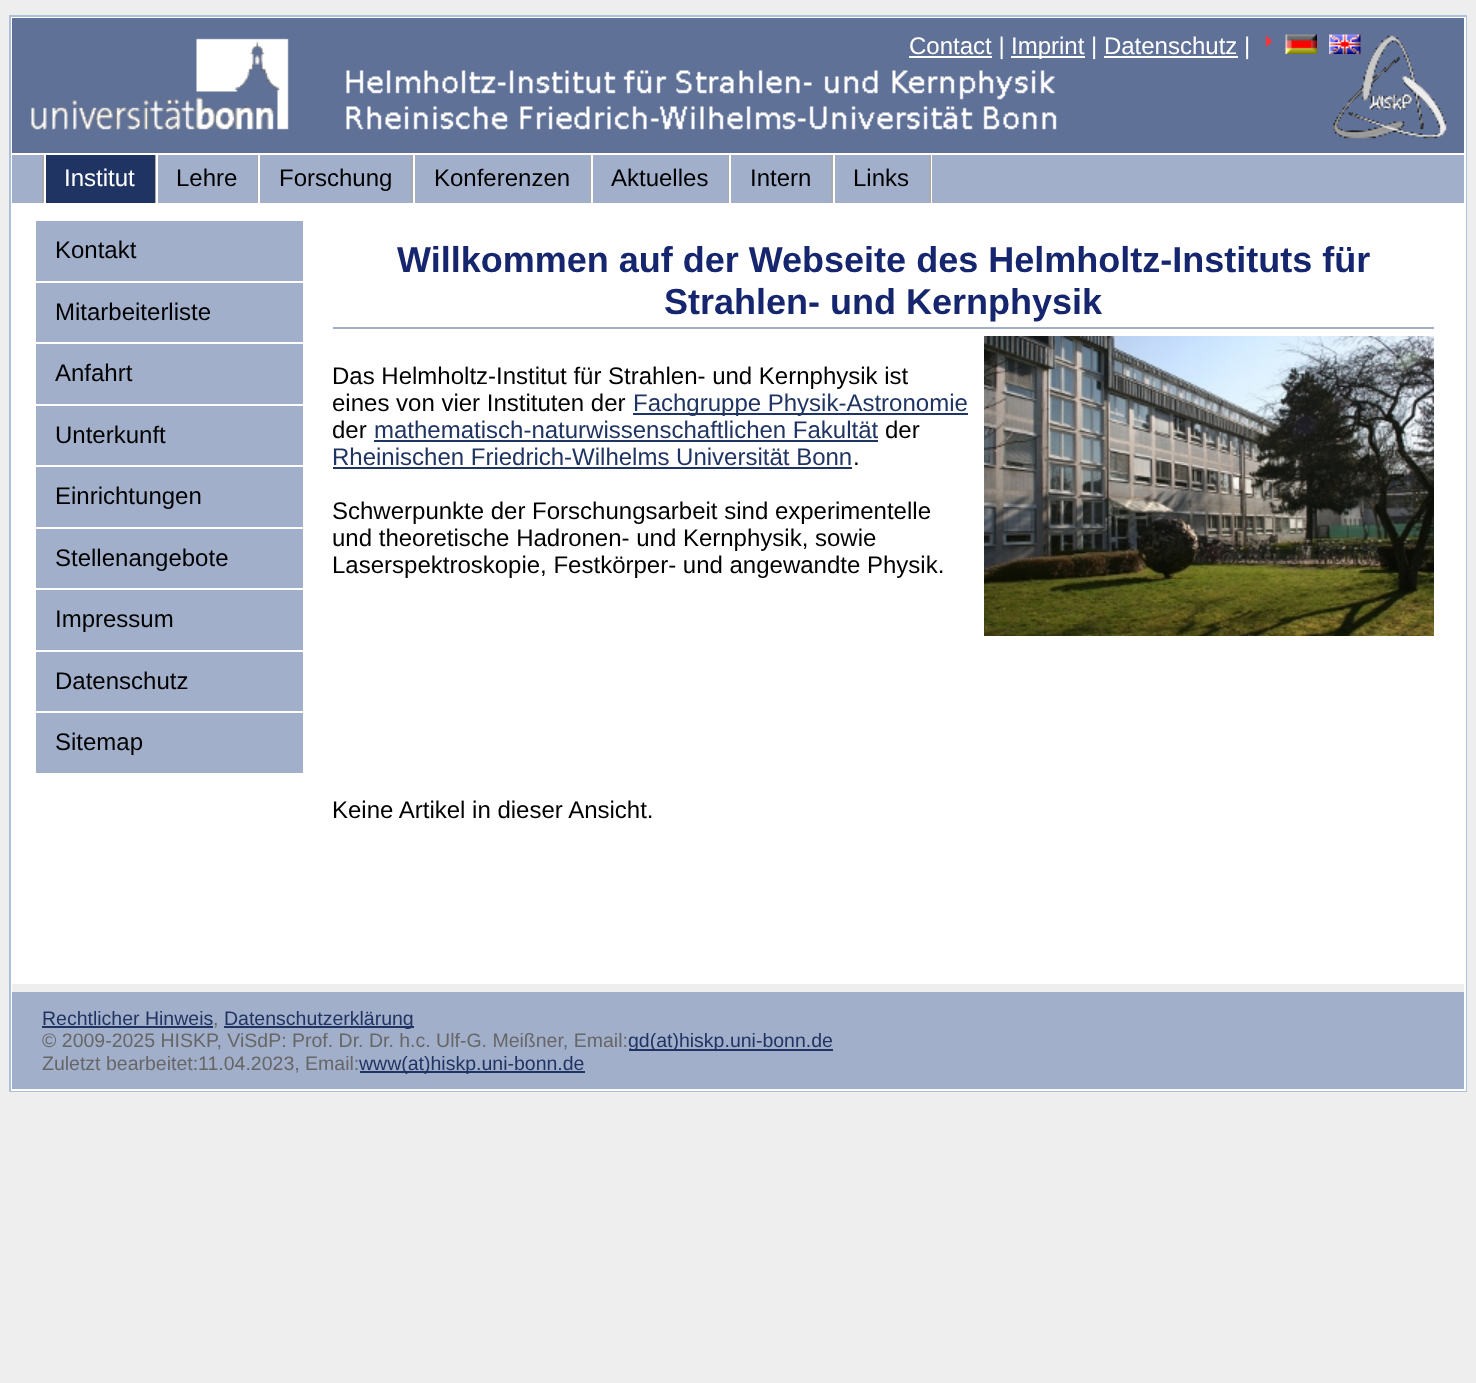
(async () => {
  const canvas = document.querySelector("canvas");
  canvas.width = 1476;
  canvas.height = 1383;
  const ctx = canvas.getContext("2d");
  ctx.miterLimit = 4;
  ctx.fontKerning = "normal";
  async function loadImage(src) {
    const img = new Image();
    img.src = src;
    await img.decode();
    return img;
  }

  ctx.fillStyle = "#eeeeee";
  ctx.fillRect(0, 0, 1476, 1383);
  ctx.fillStyle = "#ffffff";
  ctx.fillRect(13, 204, 1451, 780);
  ctx.strokeStyle = "#adc1d6";
  ctx.lineWidth = 2;
  ctx.strokeRect(10, 16, 1456, 1075);
  ctx.strokeStyle = "#ffffff";
  ctx.strokeRect(12, 18, 1453, 1072);
  ctx.fillStyle = "#607198";
  ctx.fillRect(12, 18, 1452, 135);
  ctx.drawImage(await loadImage("img/1.png"), 346, 35, 1101, 104);
  ctx.drawImage(await loadImage("img/2.png"), 31, 38, 258, 92);
  ctx.fillStyle = "#ffffff";
  ctx.fillRect(909, 56, 83, 2);
  ctx.fillRect(1011, 56, 74, 2);
  ctx.drawImage(await loadImage("img/3.png"), 1265, 35, 8, 12);
  ctx.drawImage(await loadImage("img/4.png"), 1285, 34, 32, 20);
  ctx.drawImage(await loadImage("img/5.png"), 1329, 34, 32, 20);
  for (const [x, y, w, h, color] of [
    [1104, 56, 134, 2, "#ffffff"],
    [12, 155, 1452, 48, "#a2afcb"],
    [12, 153, 1452, 2, "#ffffff"],
    [12, 203, 1452, 1, "#ffffff"],
    [931, 155, 1, 48, "#ffffff"],
    [42, 155, 2, 48, "#aaaaaa"],
    [46, 155, 109, 48, "#203463"],
    [155, 155, 1, 48, "#aaaaaa"],
    [44, 155, 2, 48, "#ffffff"],
    [257, 155, 1, 48, "#aaaaaa"],
    [156, 155, 2, 48, "#ffffff"],
    [411, 155, 2, 48, "#aaaaaa"],
    [258, 155, 2, 48, "#ffffff"],
    [590, 155, 1, 48, "#aaaaaa"],
    [413, 155, 2, 48, "#ffffff"],
    [728, 155, 1, 48, "#aaaaaa"],
    [591, 155, 2, 48, "#ffffff"],
    [831, 155, 2, 48, "#aaaaaa"],
    [729, 155, 2, 48, "#ffffff"],
    [929, 155, 2, 48, "#aaaaaa"],
    [833, 155, 2, 48, "#ffffff"],
    [36, 221, 267, 60, "#a2afcb"],
    [36, 283, 267, 59, "#a2afcb"],
    [36, 344, 267, 60, "#a2afcb"],
    [36, 406, 267, 59, "#a2afcb"],
    [36, 467, 267, 60, "#a2afcb"],
    [36, 529, 267, 59, "#a2afcb"],
    [36, 590, 267, 60, "#a2afcb"],
    [36, 652, 267, 59, "#a2afcb"],
    [36, 713, 267, 60, "#a2afcb"],
    [333, 327, 1101, 2, "#a2afcb"],
    [633, 413, 335, 2, "#203463"],
    [374, 440, 504, 2, "#203463"],
    [333, 467, 519, 2, "#203463"],
  ]) {
    ctx.fillStyle = color;
    ctx.fillRect(x, y, w, h);
  }
  ctx.drawImage(await loadImage("img/6.png"), 984, 336, 450, 300);
  for (const [x, y, w, h, color] of [
    [12, 992, 1452, 97, "#a2afcb"],
    [12, 984, 1, 8, "#efefef"],
    [42, 1026, 171, 2, "#203463"],
    [224, 1026, 190, 2, "#203463"],
    [629, 1049, 204, 2, "#203463"],
    [360, 1071, 225, 2, "#203463"],
  ]) {
    ctx.fillStyle = color;
    ctx.fillRect(x, y, w, h);
  }
  ctx.font = "24px Liberation Sans";
  ctx.fillStyle = "#ffffff";
  for (const [text, x, y] of [
    ["Contact |", 909, 54],
    ["Imprint | Datenschutz |", 1011, 54],
    ["Institut", 64, 186],
  ]) {
    ctx.fillText(text, x, y);
  }
  ctx.fillStyle = "#000000";
  for (const [text, x, y] of [
    ["Lehre", 176, 186],
    ["Forschung", 279, 186],
    ["Konferenzen", 434, 186],
    ["Aktuelles", 611, 186],
    ["Intern", 750, 186],
    ["Links", 853, 186],
    ["Kontakt", 55, 258],
    ["Mitarbeiterliste", 55, 320],
    ["Anfahrt", 55, 381],
    ["Unterkunft", 55, 443],
    ["Einrichtungen", 55, 504],
    ["Stellenangebote", 55, 566],
    ["Impressum", 55, 627],
    ["Datenschutz", 55, 689],
    ["Sitemap", 55, 750],
  ]) {
    ctx.fillText(text, x, y);
  }
  ctx.font = "bold 36px Liberation Sans";
  ctx.fillStyle = "#16266e";
  ctx.fillText("Willkommen auf der Webseite des Helmholtz-Instituts für", 397, 272);
  ctx.fillText("Strahlen- und Kernphysik", 664, 314);
  ctx.font = "24px Liberation Sans";
  ctx.fillStyle = "#000000";
  ctx.fillText("Das Helmholtz-Institut für Strahlen- und Kernphysik ist", 332, 384);
  ctx.fillText("eines von vier Instituten der", 332, 411);
  ctx.fillStyle = "#203463";
  ctx.fillText("Fachgruppe Physik-Astronomie", 633, 411);
  ctx.fillStyle = "#000000";
  ctx.fillText("der", 332, 438);
  ctx.fillStyle = "#203463";
  ctx.fillText("mathematisch-naturwissenschaftlichen Fakultät", 374, 438);
  ctx.fillStyle = "#000000";
  ctx.fillText("der", 885, 438);
  ctx.fillStyle = "#203463";
  ctx.fillText("Rheinischen Friedrich-Wilhelms Universität Bonn", 332, 465);
  ctx.fillStyle = "#000000";
  for (const [text, x, y] of [
    [".", 853, 465],
    ["Schwerpunkte der Forschungsarbeit sind experimentelle", 332, 519],
    ["und theoretische Hadronen- und Kernphysik, sowie", 332, 546],
    ["Laserspektroskopie, Festkörper- und angewandte Physik.", 332, 573],
    ["Keine Artikel in dieser Ansicht.", 332, 818],
  ]) {
    ctx.fillText(text, x, y);
  }
  ctx.font = "19.5px Liberation Sans";
  ctx.fillStyle = "#203463";
  ctx.fillText("Rechtlicher Hinweis", 42, 1025);
  ctx.fillStyle = "#666666";
  ctx.fillText(",", 213, 1025);
  ctx.fillStyle = "#203463";
  ctx.fillText("Datenschutzerklärung", 224, 1025);
  ctx.fillStyle = "#666666";
  ctx.fillText("© 2009-2025 HISKP, ViSdP: Prof. Dr. Dr. h.c. Ulf-G. Meißner, Email:", 42, 1047);
  ctx.fillStyle = "#203463";
  ctx.fillText("gd(at)hiskp.uni-bonn.de", 628, 1047);
  ctx.fillStyle = "#666666";
  ctx.fillText("Zuletzt bearbeitet:11.04.2023, Email:", 42, 1070);
  ctx.fillStyle = "#203463";
  ctx.fillText("www(at)hiskp.uni-bonn.de", 359, 1070);
})();
